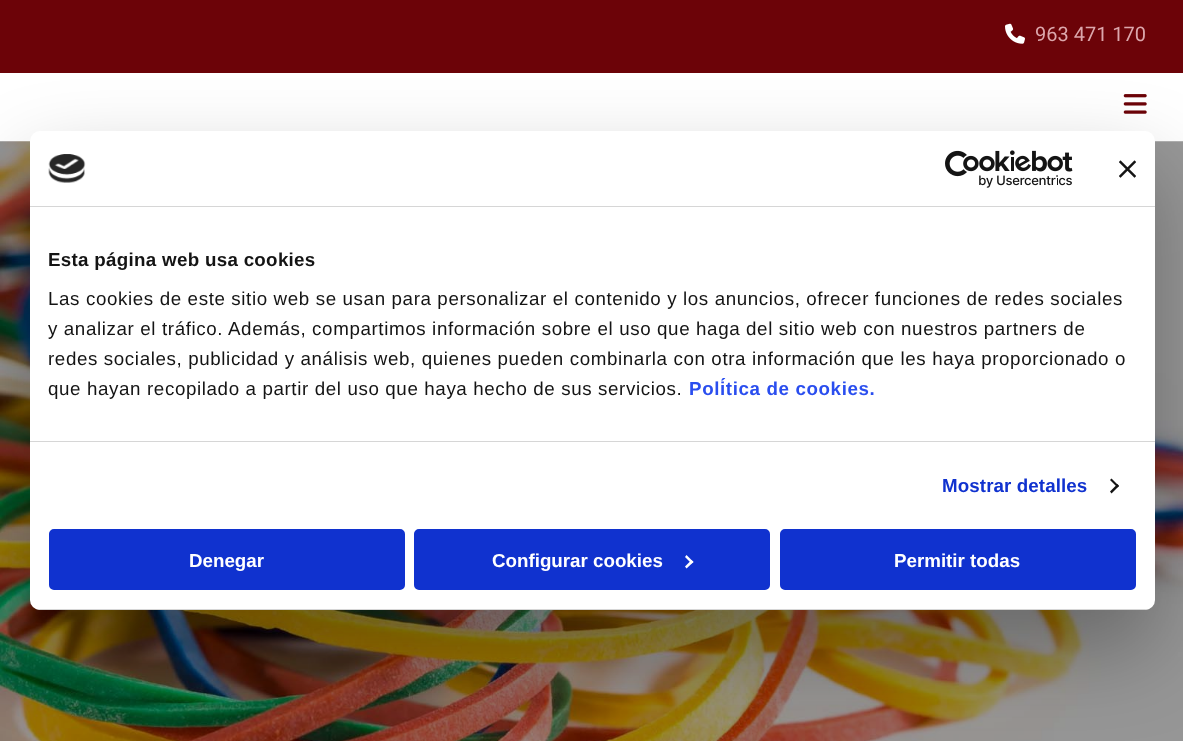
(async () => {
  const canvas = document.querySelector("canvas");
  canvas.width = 1183;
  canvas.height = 741;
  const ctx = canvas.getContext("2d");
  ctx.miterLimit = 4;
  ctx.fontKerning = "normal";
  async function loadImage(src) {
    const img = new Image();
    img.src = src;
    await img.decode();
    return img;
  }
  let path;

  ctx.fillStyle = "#ffffff";
  ctx.fillRect(0, 0, 1183, 741);
  ctx.fillStyle = "#6c0308";
  ctx.fillRect(0, 0, 1183, 73);
  ctx.drawImage(await loadImage("img/1.png"), 1005, 23, 20, 21);
  ctx.drawImage(await loadImage("img/2.png"), 1123, 94, 24, 20);
  ctx.drawImage(await loadImage("img/3.png"), 0, 141, 1183, 600);
  ctx.fillStyle = "rgba(0, 0, 0, 0.3)";
  ctx.filter = "blur(42.5px)";
  ctx.beginPath();
  ctx.roundRect(30, 171, 1125, 479, 10);
  ctx.fill();
  ctx.filter = "none";
  ctx.fillStyle = "#ffffff";
  ctx.beginPath();
  ctx.roundRect(30, 131, 1125, 479, 10);
  ctx.fill();
  ctx.fillStyle = "#d6d6d6";
  ctx.fillRect(30, 206, 1125, 1);
  ctx.drawImage(await loadImage("img/4.png"), 48, 154, 38, 29);
  ctx.drawImage(await loadImage("img/5.png"), 945, 150, 128, 38);
  ctx.drawImage(await loadImage("img/6.png"), 1119, 160, 17, 18);
  ctx.fillRect(30, 441, 1125, 1);
  ctx.fillStyle = "#141414";
  path = new Path2D("M1111.5 478.5L1119 486L1117.5 487.5L1110 480Z");
  ctx.fill(path);
  path = new Path2D("M1117.5 484L1119 486L1111.5 493.5L1110 491.5Z");
  ctx.fill(path);
  ctx.save();
  ctx.beginPath();
  ctx.roundRect(30, 131, 1125, 479, 10);
  ctx.clip();
  ctx.fillStyle = "#d6d6d6";
  ctx.fillRect(30, 609, 1125, 1);
  ctx.restore();
  ctx.fillStyle = "#1032cf";
  ctx.beginPath();
  ctx.roundRect(50.5, 530.5, 353, 58, 3.5);
  ctx.fill();
  ctx.strokeStyle = "#1032cf";
  ctx.lineWidth = 3;
  ctx.stroke();
  ctx.beginPath();
  ctx.roundRect(415.5, 530.5, 353, 58, 3.5);
  ctx.fill();
  ctx.stroke();
  ctx.fillStyle = "#ffffff";
  path = new Path2D("M686.5 555L693.5 562L691.5 563.5L685 557Z");
  ctx.fill(path);
  path = new Path2D("M691.5 560L693.5 562L686.5 568.5L685 566.5Z");
  ctx.fill(path);
  ctx.fillStyle = "#1032cf";
  ctx.beginPath();
  ctx.roundRect(781.5, 530.5, 353, 58, 3.5);
  ctx.fill();
  ctx.stroke();
  ctx.font = "20px Roboto";
  ctx.fillStyle = "#dca7ac";
  ctx.fillText("963 471 170", 1035, 41);
  ctx.letterSpacing = "0.3px";
  ctx.font = "bold 18.75px Liberation Sans";
  ctx.fillStyle = "#141414";
  ctx.fillText("Esta página web usa cookies", 48, 266);
  ctx.letterSpacing = "0.62px";
  ctx.font = "18.75px Liberation Sans";
  for (const [text, x, y] of [
    ["Las cookies de este sitio web se usan para personalizar el contenido y los anuncios, ofrecer funciones de redes sociales", 48, 305],
    ["y analizar el tráfico. Además, compartimos información sobre el uso que haga del sitio web con nuestros partners de", 48, 335],
    ["redes sociales, publicidad y análisis web, quienes pueden combinarla con otra información que les haya proporcionado o", 48, 365],
    ["que hayan recopilado a partir del uso que haya hecho de sus servicios.", 48, 395],
  ]) {
    ctx.fillText(text, x, y);
  }
  ctx.font = "bold 18.75px Liberation Sans";
  ctx.fillStyle = "#2a4eef";
  ctx.fillText("Política de cookies.", 689, 395);
  ctx.letterSpacing = "0.1px";
  ctx.fillStyle = "#1032cf";
  ctx.fillText("Mostrar detalles", 942, 492);
  ctx.letterSpacing = "0px";
  ctx.fillStyle = "#ffffff";
  for (const [text, x, y] of [
    ["Denegar", 189, 567],
    ["Configurar cookies", 492, 567],
    ["Permitir todas", 894, 567],
  ]) {
    ctx.fillText(text, x, y);
  }
})();
